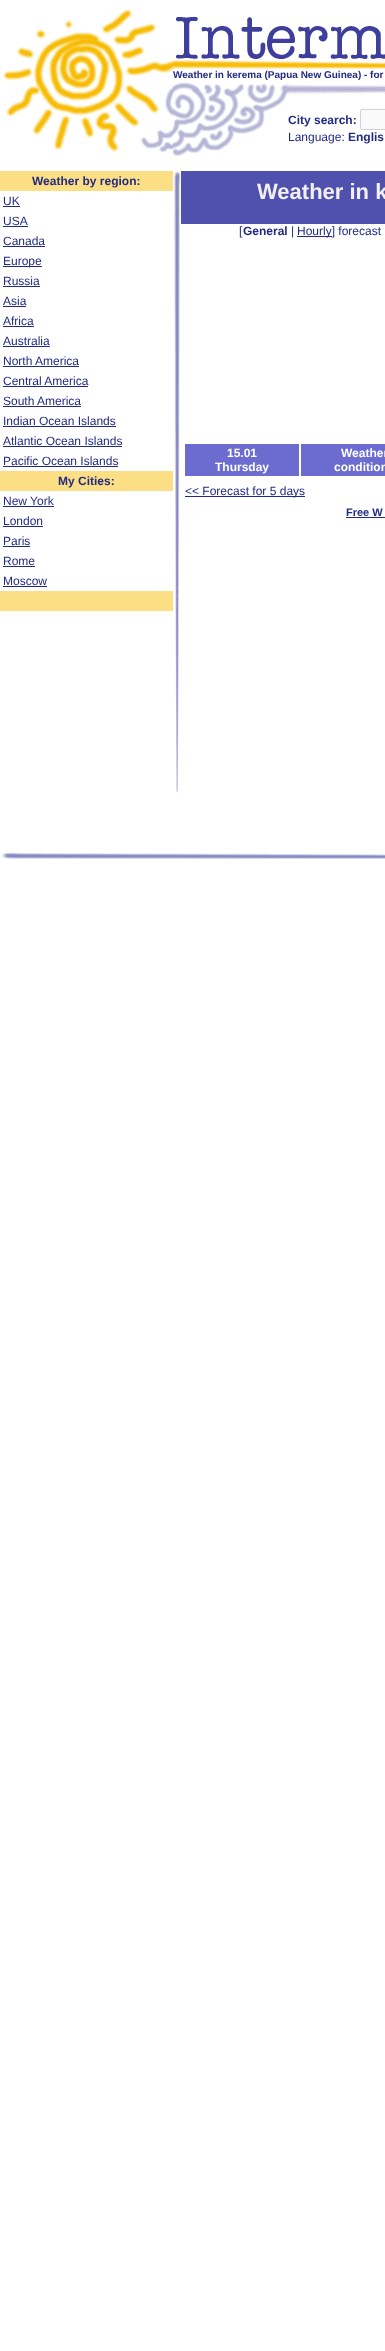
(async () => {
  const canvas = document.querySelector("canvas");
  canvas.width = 385;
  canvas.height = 2351;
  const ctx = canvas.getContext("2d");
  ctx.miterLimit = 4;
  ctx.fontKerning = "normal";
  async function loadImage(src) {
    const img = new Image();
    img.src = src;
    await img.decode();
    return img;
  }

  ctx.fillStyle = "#ffffff";
  ctx.fillRect(0, 0, 385, 2351);
  ctx.drawImage(await loadImage("img/1.png"), 3, 9, 170, 146);
  ctx.drawImage(await loadImage("img/2.png"), 173, 16, 212, 53);
  ctx.drawImage(await loadImage("img/3.png"), 173, 82, 115, 74);
  ctx.drawImage(await loadImage("img/4.png"), 288, 84, 97, 10);
  ctx.fillStyle = "#fafafa";
  ctx.beginPath();
  ctx.roundRect(360.5, 109.5, 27, 20, 1.5);
  ctx.fill();
  ctx.strokeStyle = "#d2d2d2";
  ctx.stroke();
  for (const [x, y, w, h, color] of [
    [0, 171, 173, 20, "#fcdf84"],
    [3, 206, 17, 1, "#222a82"],
    [3, 226, 25, 1, "#222a82"],
    [3, 246, 42, 1, "#222a82"],
    [3, 266, 39, 1, "#222a82"],
    [3, 286, 37, 1, "#222a82"],
    [3, 306, 23, 1, "#222a82"],
    [3, 326, 31, 1, "#222a82"],
    [3, 346, 47, 1, "#222a82"],
    [3, 366, 76, 1, "#222a82"],
    [3, 386, 85, 1, "#222a82"],
    [3, 406, 78, 1, "#222a82"],
    [3, 426, 113, 1, "#222a82"],
    [3, 446, 119, 1, "#222a82"],
    [3, 466, 115, 1, "#222a82"],
    [0, 471, 173, 20, "#fcdf84"],
    [3, 506, 51, 1, "#222a82"],
    [3, 526, 40, 1, "#222a82"],
    [3, 546, 27, 1, "#222a82"],
    [3, 566, 32, 1, "#222a82"],
    [3, 586, 44, 1, "#222a82"],
    [0, 591, 173, 20, "#fcdf84"],
  ]) {
    ctx.fillStyle = color;
    ctx.fillRect(x, y, w, h);
  }
  ctx.drawImage(await loadImage("img/5.png"), 174, 171, 7, 622);
  for (const [x, y, w, h, color] of [
    [181, 171, 204, 53, "#5050ae"],
    [297, 236, 35, 1, "#222a82"],
    [185, 444, 200, 32, "#6b6bd0"],
  ]) {
    ctx.fillStyle = color;
    ctx.fillRect(x, y, w, h);
  }
  ctx.strokeStyle = "#ffffff";
  ctx.strokeRect(184.5, 443.5, 115, 33);
  ctx.strokeRect(300.5, 443.5, 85, 33);
  ctx.fillStyle = "#222a82";
  ctx.fillRect(185, 496, 120, 1);
  ctx.fillRect(346, 517, 39, 1);
  ctx.drawImage(await loadImage("img/6.png"), 2, 852, 383, 7);
  ctx.font = "bold 10px Liberation Sans";
  ctx.fillText("Weather in kerema (Papua New Guinea) - for", 173, 78);
  ctx.font = "bold 12px Liberation Sans";
  ctx.fillText("City search:", 288, 124);
  ctx.font = "12px Liberation Sans";
  ctx.fillText("Language:", 288, 141);
  ctx.font = "bold 12px Liberation Sans";
  ctx.fillText("Englis", 348, 141);
  ctx.fillText("Weather by region:", 32, 185);
  ctx.font = "12px Liberation Sans";
  for (const [text, x, y] of [
    ["UK", 3, 205],
    ["USA", 3, 225],
    ["Canada", 3, 245],
    ["Europe", 3, 265],
    ["Russia", 3, 285],
    ["Asia", 3, 305],
    ["Africa", 3, 325],
    ["Australia", 3, 345],
    ["North America", 3, 365],
    ["Central America", 3, 385],
    ["South America", 3, 405],
    ["Indian Ocean Islands", 3, 425],
    ["Atlantic Ocean Islands", 3, 445],
    ["Pacific Ocean Islands", 3, 465],
  ]) {
    ctx.fillText(text, x, y);
  }
  ctx.font = "bold 12px Liberation Sans";
  ctx.fillText("My Cities:", 58, 485);
  ctx.font = "12px Liberation Sans";
  for (const [text, x, y] of [
    ["New York", 3, 505],
    ["London", 3, 525],
    ["Paris", 3, 545],
    ["Rome", 3, 565],
    ["Moscow", 3, 585],
  ]) {
    ctx.fillText(text, x, y);
  }
  ctx.font = "bold 22px Liberation Sans";
  ctx.fillStyle = "#f0f0f0";
  ctx.fillText("Weather in k", 257, 199);
  ctx.font = "12px Liberation Sans";
  ctx.fillStyle = "#222a82";
  ctx.fillText("[", 239, 235);
  ctx.font = "bold 12px Liberation Sans";
  ctx.fillText("General", 243, 235);
  ctx.font = "12px Liberation Sans";
  ctx.fillText("|", 291, 235);
  ctx.fillText("Hourly] forecast", 297, 235);
  ctx.font = "bold 12px Liberation Sans";
  ctx.fillStyle = "#ffffff";
  for (const [text, x, y] of [
    ["15.01", 227, 457],
    ["Thursday", 215, 471],
    ["Weather", 341, 457],
    ["condition", 334, 471],
  ]) {
    ctx.fillText(text, x, y);
  }
  ctx.font = "12px Liberation Sans";
  ctx.fillStyle = "#222a82";
  ctx.fillText("<< Forecast for 5 days", 185, 495);
  ctx.font = "bold 11px Liberation Sans";
  ctx.fillText("Free W", 346, 516);
})();
